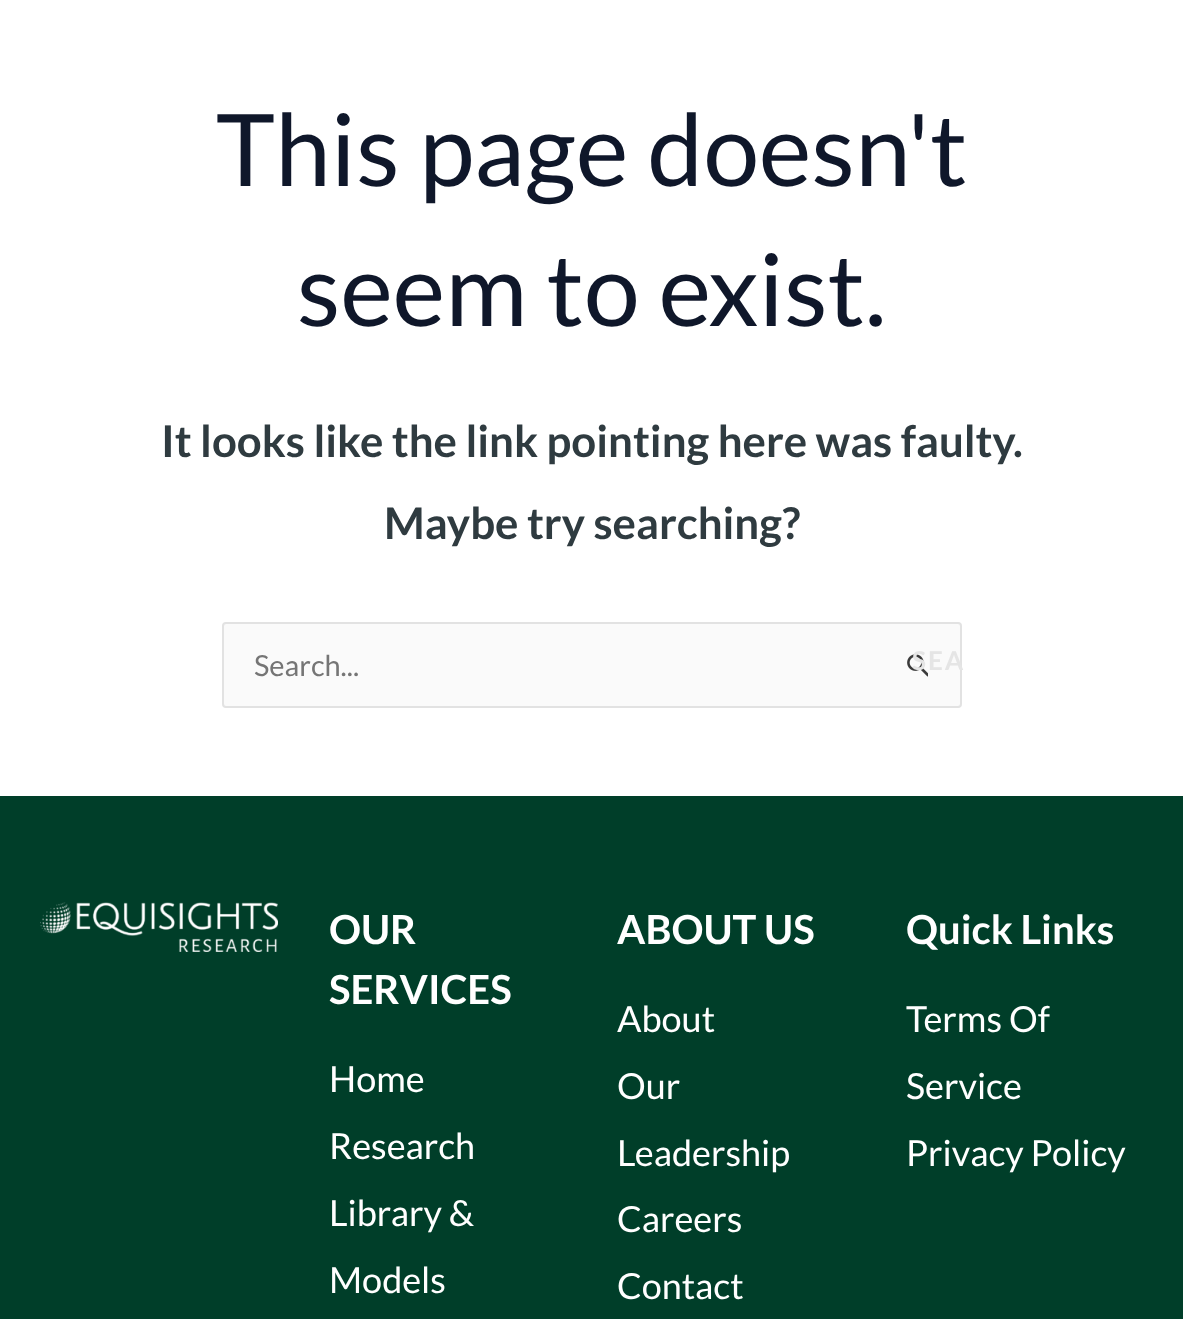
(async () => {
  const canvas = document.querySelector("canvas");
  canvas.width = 1183;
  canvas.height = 1319;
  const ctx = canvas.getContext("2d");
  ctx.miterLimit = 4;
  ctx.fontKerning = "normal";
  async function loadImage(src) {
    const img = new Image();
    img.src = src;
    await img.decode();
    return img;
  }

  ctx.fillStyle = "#ffffff";
  ctx.fillRect(0, 0, 1183, 1319);
  ctx.fillStyle = "#fafafa";
  ctx.beginPath();
  ctx.roundRect(223, 623, 738, 84, 3);
  ctx.fill();
  ctx.strokeStyle = "#e2e2e2";
  ctx.lineWidth = 2;
  ctx.stroke();
  ctx.drawImage(await loadImage("img/1.png"), 907, 654, 21, 23);
  ctx.fillStyle = "#003e29";
  ctx.fillRect(0, 796, 1183, 523);
  ctx.drawImage(await loadImage("img/2.png"), 40, 902, 238, 50);
  ctx.font = "100px Lato";
  ctx.fillStyle = "#0f172a";
  ctx.fillText("This page doesn't", 216, 186);
  ctx.fillText("seem to exist.", 297, 326);
  ctx.font = "bold 43.75px Lato";
  ctx.fillStyle = "#2f3b40";
  ctx.fillText("It looks like the link pointing here was faulty.", 161, 457);
  ctx.fillText("Maybe try searching?", 384, 539);
  ctx.font = "29px Lato";
  ctx.fillStyle = "#757575";
  ctx.fillText("Search...", 254, 676);
  ctx.letterSpacing = "2px";
  ctx.font = "bold 26px Lato";
  ctx.fillStyle = "#e5e5e5";
  ctx.fillText("SEA", 912, 670);
  ctx.letterSpacing = "0px";
  ctx.font = "bold 40px Lato";
  ctx.fillStyle = "#ffffff";
  ctx.fillText("OUR", 329, 944);
  ctx.fillText("SERVICES", 329, 1004);
  ctx.font = "36px Lato";
  for (const [text, x, y] of [
    ["Home", 329, 1092],
    ["Research", 329, 1159],
    ["Library &", 329, 1226],
    ["Models", 329, 1293],
  ]) {
    ctx.fillText(text, x, y);
  }
  ctx.font = "bold 40px Lato";
  ctx.fillText("ABOUT US", 617, 944);
  ctx.font = "36px Lato";
  for (const [text, x, y] of [
    ["About", 617, 1032],
    ["Our", 617, 1099],
    ["Leadership", 617, 1166],
    ["Careers", 617, 1232],
    ["Contact", 617, 1299],
  ]) {
    ctx.fillText(text, x, y);
  }
  ctx.font = "bold 40px Lato";
  ctx.fillText("Quick Links", 906, 944);
  ctx.font = "36px Lato";
  for (const [text, x, y] of [
    ["Terms Of", 906, 1032],
    ["Service", 906, 1099],
    ["Privacy Policy", 906, 1166],
  ]) {
    ctx.fillText(text, x, y);
  }
})();
